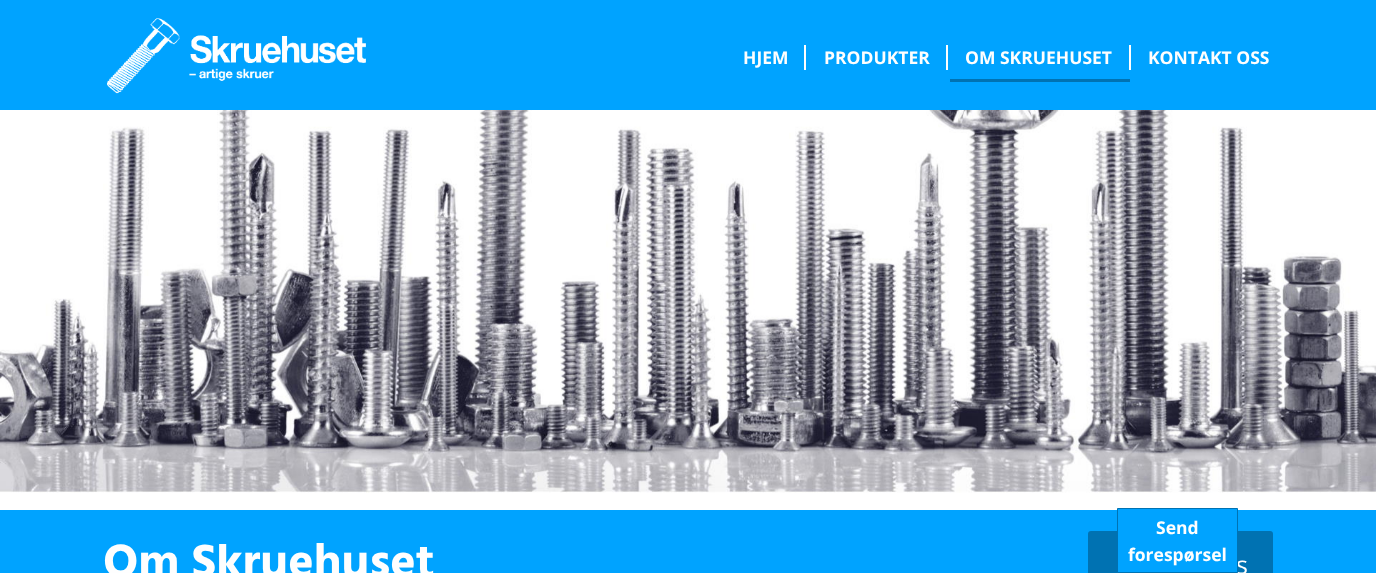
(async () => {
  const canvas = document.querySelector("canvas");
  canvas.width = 1376;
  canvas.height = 573;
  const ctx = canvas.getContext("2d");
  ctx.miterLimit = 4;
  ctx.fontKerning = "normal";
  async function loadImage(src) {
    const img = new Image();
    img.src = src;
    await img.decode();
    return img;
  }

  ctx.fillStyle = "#ffffff";
  ctx.fillRect(0, 0, 1376, 573);
  ctx.fillStyle = "#00a3ff";
  ctx.fillRect(0, 0, 1376, 110);
  ctx.drawImage(await loadImage("img/1.png"), 107, 18, 259, 76);
  for (const [x, y, w, h, color] of [
    [804, 45, 2, 25, "#fefefe"],
    [946, 45, 2, 25, "#fefefe"],
    [950, 79, 180, 3, "#0072b2"],
    [1129, 45, 2, 25, "#fefefe"],
  ]) {
    ctx.fillStyle = color;
    ctx.fillRect(x, y, w, h);
  }
  ctx.drawImage(await loadImage("img/2.png"), 0, 110, 1376, 383);
  ctx.fillStyle = "#00a3ff";
  ctx.fillRect(0, 510, 1376, 63);
  ctx.fillStyle = "#0072b2";
  ctx.beginPath();
  ctx.roundRect(1088, 531, 185, 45, 3);
  ctx.fill();
  ctx.font = "bold 17.5px Open Sans";
  ctx.fillStyle = "#fefefe";
  for (const [text, x, y] of [
    ["HJEM", 743, 64],
    ["PRODUKTER", 824, 64],
    ["OM SKRUEHUSET", 965, 64],
    ["KONTAKT OSS", 1148, 64],
  ]) {
    ctx.fillText(text, x, y);
  }
  ctx.font = "bold 48px Hind";
  ctx.fillText("Om Skruehuset", 103, 577);
  ctx.font = "25px Open Sans";
  ctx.fillText("s", 1236, 574);
  ctx.fillStyle = "#00a3ff";
  ctx.beginPath();
  ctx.rect(1117.5, 508.5, 120, 64);
  ctx.fill();
  ctx.strokeStyle = "#0072b2";
  ctx.stroke();
  ctx.font = "bold 17.5px Open Sans";
  ctx.fillStyle = "#fefefe";
  ctx.fillText("forespørsel", 1128, 561);
  ctx.fillText("Send", 1156, 534);
})();
